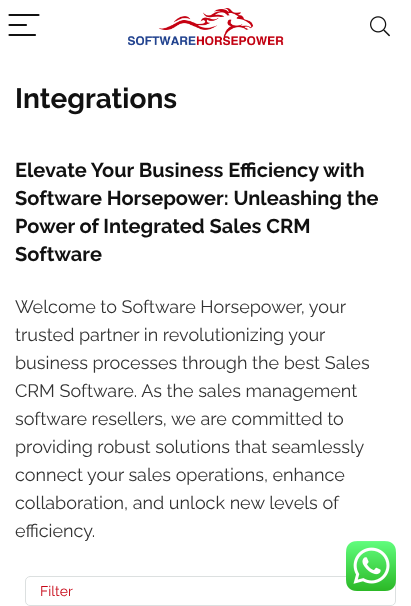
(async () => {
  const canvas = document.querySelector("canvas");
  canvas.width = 411;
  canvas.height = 606;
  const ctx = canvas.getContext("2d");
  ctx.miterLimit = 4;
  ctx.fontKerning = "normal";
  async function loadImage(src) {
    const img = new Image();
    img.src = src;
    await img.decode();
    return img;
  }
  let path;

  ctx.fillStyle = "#ffffff";
  ctx.fillRect(0, 0, 411, 606);
  path = new Path2D("M9.5 15H38.5M9.5 25H26M9.5 35H35");
  ctx.strokeStyle = "#111111";
  ctx.lineWidth = 2.2;
  ctx.lineCap = "round";
  ctx.stroke(path);
  ctx.drawImage(await loadImage("img/1.png"), 128, 8, 156, 38);
  ctx.drawImage(await loadImage("img/2.png"), 370, 16, 20, 21);
  ctx.beginPath();
  ctx.roundRect(25.5, 576.5, 370, 29, 4.5);
  ctx.strokeStyle = "#dce0e0";
  ctx.lineWidth = 1;
  ctx.stroke();
  ctx.drawImage(await loadImage("img/3.png"), 346, 541, 50, 50);
  ctx.font = "bold 28px Raleway";
  ctx.fillStyle = "#111111";
  ctx.fillText("Integrations", 15, 108);
  ctx.font = "bold 20px Raleway";
  for (const [text, x, y] of [
    ["Elevate Your Business Efficiency with", 15, 177],
    ["Software Horsepower: Unleashing the", 15, 205],
    ["Power of Integrated Sales CRM", 15, 233],
    ["Software", 15, 261],
  ]) {
    ctx.fillText(text, x, y);
  }
  ctx.font = "18px Raleway";
  ctx.fillStyle = "#333333";
  for (const [text, x, y] of [
    ["Welcome to Software Horsepower, your", 15, 313],
    ["trusted partner in revolutionizing your", 15, 341],
    ["business processes through the best Sales", 15, 369],
    ["CRM Software. As the sales management", 15, 397],
    ["software resellers, we are committed to", 15, 425],
    ["providing robust solutions that seamlessly", 15, 453],
    ["connect your sales operations, enhance", 15, 481],
    ["collaboration, and unlock new levels of", 15, 509],
    ["efficiency.", 15, 537],
  ]) {
    ctx.fillText(text, x, y);
  }
  ctx.font = "14px Raleway";
  ctx.fillStyle = "#c70818";
  ctx.fillText("Filter", 40, 596);
})();
